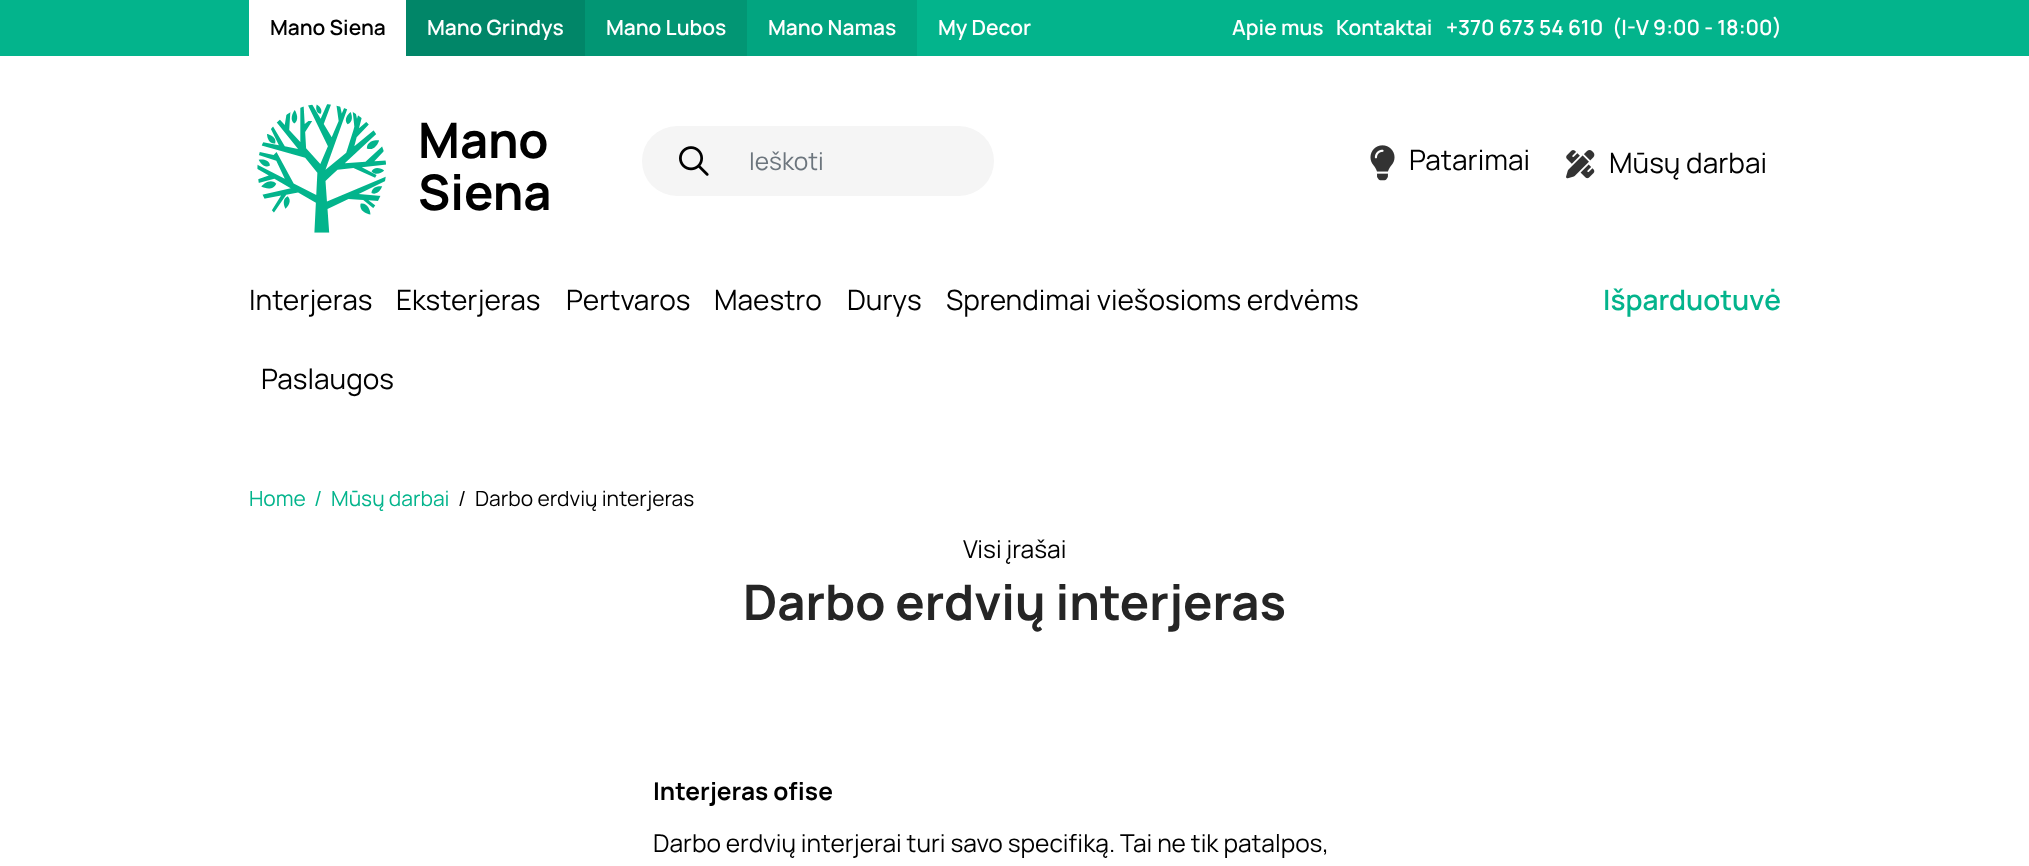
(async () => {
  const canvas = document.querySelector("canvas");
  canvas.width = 2029;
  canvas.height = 866;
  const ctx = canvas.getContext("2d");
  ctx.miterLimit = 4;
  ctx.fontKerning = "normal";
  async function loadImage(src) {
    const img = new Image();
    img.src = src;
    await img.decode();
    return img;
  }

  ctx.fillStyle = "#ffffff";
  ctx.fillRect(0, 0, 2029, 866);
  for (const [x, y, w, h, color] of [
    [0, 0, 2029, 56, "#03b48c"],
    [249, 0, 157, 56, "#ffffff"],
    [406, 0, 179, 56, "#018668"],
    [585, 0, 162, 56, "#029674"],
    [747, 0, 170, 56, "#02a580"],
  ]) {
    ctx.fillStyle = color;
    ctx.fillRect(x, y, w, h);
  }
  ctx.drawImage(await loadImage("img/1.png"), 257, 104, 129, 129);
  ctx.fillStyle = "#f5f5f5";
  ctx.beginPath();
  ctx.roundRect(642, 126, 352, 70, 35);
  ctx.fill();
  ctx.drawImage(await loadImage("img/2.png"), 679, 146, 30, 30);
  ctx.drawImage(await loadImage("img/3.png"), 1370, 145, 25, 36);
  ctx.drawImage(await loadImage("img/4.png"), 1566, 150, 29, 29);
  ctx.font = "600 21px Manrope";
  ctx.fillStyle = "#000000";
  ctx.fillText("Mano Siena", 270, 35);
  ctx.fillStyle = "#ffffff";
  for (const [text, x, y] of [
    ["Mano Grindys", 427, 35],
    ["Mano Lubos", 606, 35],
    ["Mano Namas", 768, 35],
    ["My Decor", 938, 35],
    ["Apie mus", 1232, 35],
    ["Kontaktai", 1336, 35],
    ["+370 673 54 610", 1446, 35],
    ["(I-V 9:00 - 18:00)", 1612, 35],
  ]) {
    ctx.fillText(text, x, y);
  }
  ctx.font = "bold 49px Manrope";
  ctx.fillStyle = "#000000";
  ctx.fillText("Mano", 418, 158);
  ctx.fillText("Siena", 418, 210);
  ctx.font = "24.5px Manrope";
  ctx.fillStyle = "#6c757d";
  ctx.fillText("Ieškoti", 749, 170);
  ctx.font = "28px Manrope";
  ctx.fillStyle = "#000000";
  for (const [text, x, y] of [
    ["Patarimai", 1409, 170],
    ["Mūsų darbai", 1609, 173],
    ["Interjeras", 249, 310],
    ["Eksterjeras", 396, 310],
    ["Pertvaros", 566, 310],
    ["Maestro", 714, 310],
    ["Durys", 847, 310],
    ["Sprendimai viešosioms erdvėms", 946, 310],
    ["Paslaugos", 261, 389],
  ]) {
    ctx.fillText(text, x, y);
  }
  ctx.font = "600 28px Manrope";
  ctx.fillStyle = "#03b48c";
  ctx.fillText("Išparduotuvė", 1603, 310);
  ctx.font = "21px Manrope";
  for (const [text, x, y] of [
    ["Home", 249, 506],
    ["/", 314, 506],
    ["Mūsų darbai", 331, 506],
  ]) {
    ctx.fillText(text, x, y);
  }
  ctx.fillStyle = "#000000";
  ctx.fillText("/", 458, 506);
  ctx.fillText("Darbo erdvių interjeras", 475, 506);
  ctx.font = "24.5px Manrope";
  ctx.fillText("Visi įrašai", 963, 558);
  ctx.font = "bold 49px Manrope";
  ctx.fillStyle = "#252525";
  ctx.fillText("Darbo erdvių interjeras", 743, 620);
  ctx.font = "bold 24.5px Manrope";
  ctx.fillStyle = "#000000";
  ctx.fillText("Interjeras ofise", 653, 800);
  ctx.font = "24.5px Manrope";
  ctx.fillText("Darbo erdvių interjerai turi savo specifiką. Tai ne tik patalpos,", 653, 852);
})();
